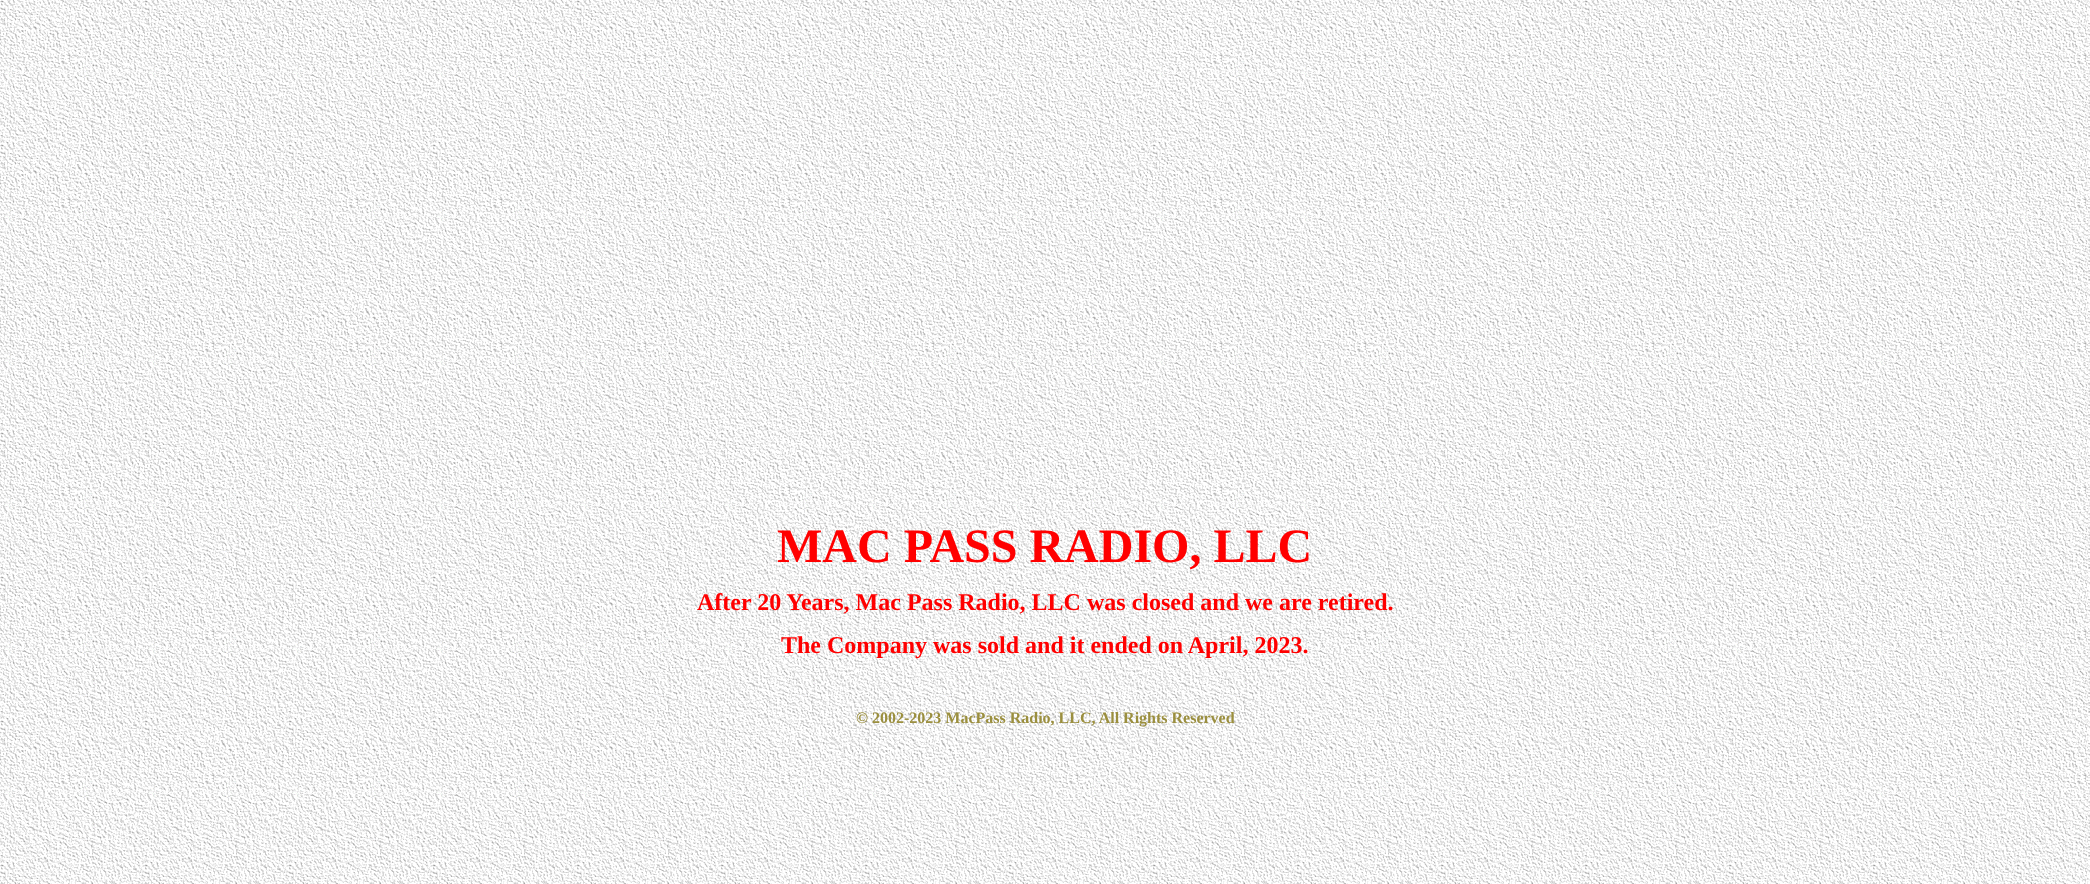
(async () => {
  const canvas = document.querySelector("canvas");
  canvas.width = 2090;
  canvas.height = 884;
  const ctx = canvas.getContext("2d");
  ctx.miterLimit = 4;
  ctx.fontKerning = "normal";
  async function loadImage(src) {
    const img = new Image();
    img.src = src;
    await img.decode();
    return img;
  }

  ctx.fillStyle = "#ffffff";
  ctx.fillRect(0, 0, 2090, 884);
  ctx.drawImage(await loadImage("img/1.png"), 0, 0, 2090, 884);
  ctx.font = "bold 48px Liberation Serif";
  ctx.fillStyle = "#ff0000";
  ctx.fillText("MAC PASS RADIO, LLC", 777, 562);
  ctx.font = "bold 24px Liberation Serif";
  ctx.fillText("After 20 Years, Mac Pass Radio, LLC was closed and we are retired.", 697, 610);
  ctx.fillText("The Company was sold and it ended on April, 2023.", 781, 653);
  ctx.font = "bold 16px Liberation Serif";
  ctx.fillStyle = "#9b8f3e";
  ctx.fillText("© 2002-2023 MacPass Radio, LLC, All Rights Reserved", 856, 723);
})();
